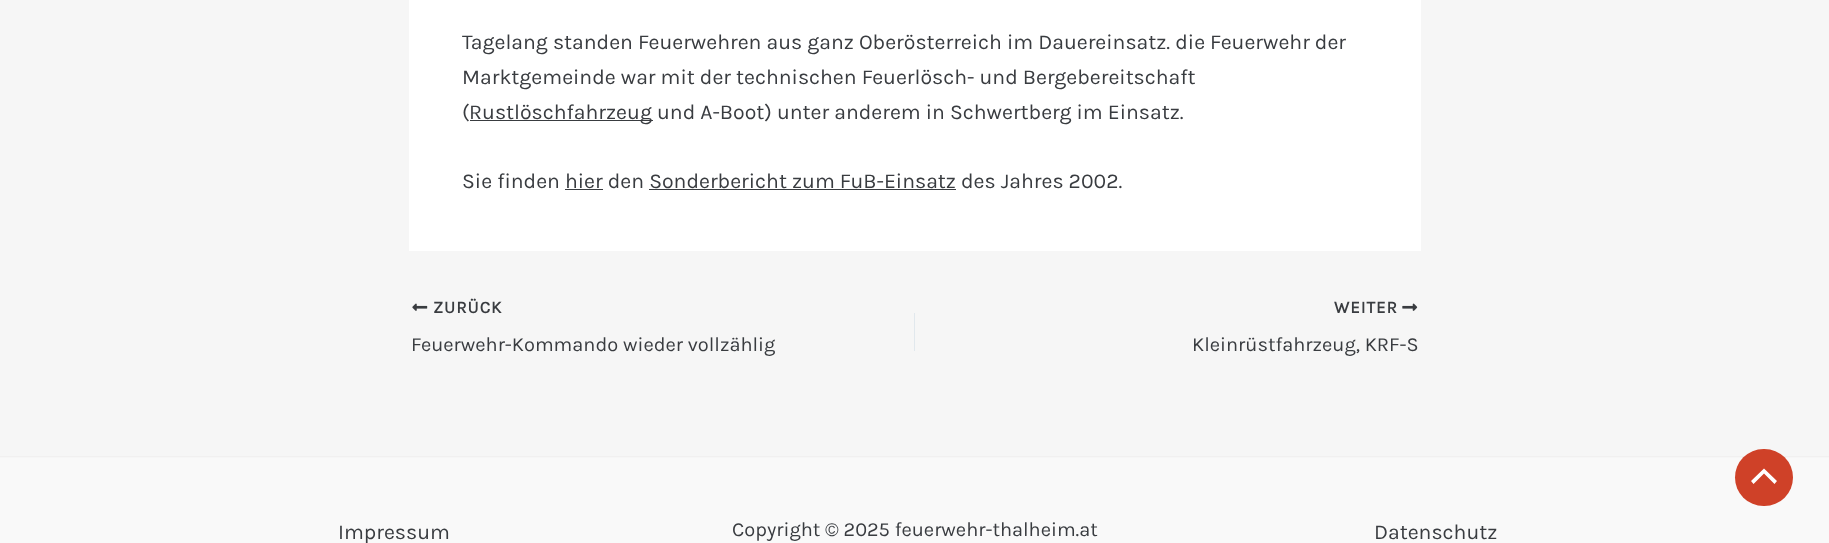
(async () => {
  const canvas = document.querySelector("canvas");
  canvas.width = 1829;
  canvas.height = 543;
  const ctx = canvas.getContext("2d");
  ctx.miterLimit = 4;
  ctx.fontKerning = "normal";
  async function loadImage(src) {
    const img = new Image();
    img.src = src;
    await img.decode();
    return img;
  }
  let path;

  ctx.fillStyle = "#f6f6f6";
  ctx.fillRect(0, 0, 1829, 543);
  for (const [x, y, w, h, color] of [
    [409, 0, 1012, 251, "#ffffff"],
    [470, 120, 183, 1, "#393c40"],
    [565, 189, 38, 1, "#393c40"],
    [649, 189, 307, 1, "#393c40"],
  ]) {
    ctx.fillStyle = color;
    ctx.fillRect(x, y, w, h);
  }
  ctx.drawImage(await loadImage("img/1.png"), 412, 303, 16, 8);
  ctx.fillStyle = "#e1e8ed";
  ctx.fillRect(914, 313, 1, 38);
  ctx.drawImage(await loadImage("img/2.png"), 1402, 303, 16, 8);
  ctx.fillStyle = "#f9f9f9";
  ctx.fillRect(0, 458, 1829, 85);
  ctx.fillStyle = "#f1f0f0";
  ctx.fillRect(0, 456, 1829, 1);
  ctx.fillStyle = "#cf4128";
  ctx.beginPath();
  ctx.roundRect(1735, 449, 58, 57, 28.5);
  ctx.fill();
  ctx.fillStyle = "#ffffff";
  path = new Path2D("M1777 481L1764 468.5L1751 481L1753.5 484L1764 473.5L1774.5 484Z");
  ctx.fill(path);
  ctx.font = "21.25px Karla";
  ctx.fillStyle = "#393c40";
  for (const [text, x, y] of [
    ["Tagelang standen Feuerwehren aus ganz Oberösterreich im Dauereinsatz. die Feuerwehr der", 462, 49],
    ["Marktgemeinde war mit der technischen Feuerlösch- und Bergebereitschaft", 462, 84],
    ["(", 462, 119],
    ["Rustlöschfahrzeug und A-Boot) unter anderem in Schwertberg im Einsatz.", 469, 119],
    ["Sie finden hier den Sonderbericht zum FuB-Einsatz des Jahres 2002.", 462, 188],
  ]) {
    ctx.fillText(text, x, y);
  }
  ctx.letterSpacing = "1px";
  ctx.font = "bold 17px Karla";
  ctx.fillText("ZURÜCK", 433, 313);
  ctx.letterSpacing = "0px";
  ctx.font = "20px Karla";
  ctx.fillText("Feuerwehr-Kommando wieder vollzählig", 411, 351);
  ctx.letterSpacing = "1px";
  ctx.font = "bold 17px Karla";
  ctx.fillText("WEITER", 1334, 313);
  ctx.letterSpacing = "0px";
  ctx.font = "20px Karla";
  ctx.fillText("Kleinrüstfahrzeug, KRF-S", 1192, 351);
  ctx.font = "21.25px Karla";
  ctx.fillText("Impressum", 338, 539);
  ctx.font = "20px Karla";
  ctx.fillText("Copyright © 2025 feuerwehr-thalheim.at", 732, 536);
  ctx.font = "21.25px Karla";
  ctx.fillText("Datenschutz", 1374, 539);
})();
